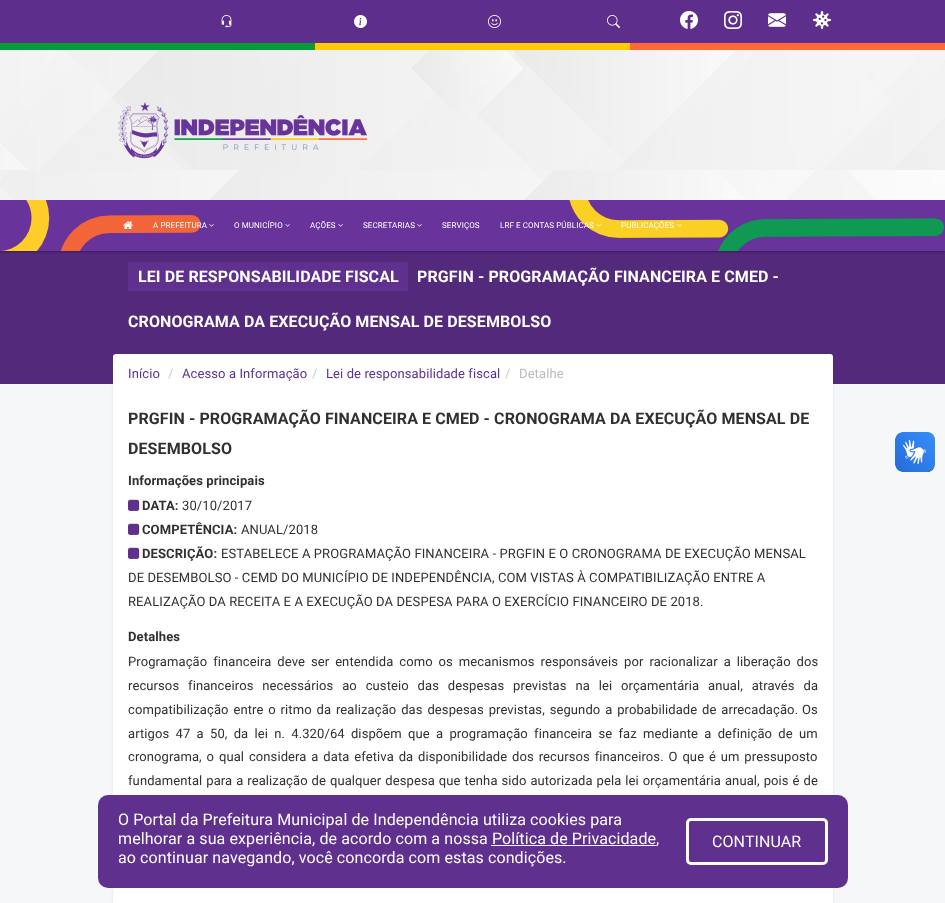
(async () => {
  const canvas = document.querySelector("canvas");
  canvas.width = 945;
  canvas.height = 903;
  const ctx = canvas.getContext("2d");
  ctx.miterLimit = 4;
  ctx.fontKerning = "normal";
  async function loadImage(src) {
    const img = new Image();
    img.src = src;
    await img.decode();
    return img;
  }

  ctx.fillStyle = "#f6f7f8";
  ctx.fillRect(0, 0, 945, 903);
  ctx.fillStyle = "rgba(3, 0, 71, 0.09)";
  ctx.filter = "blur(1.5px)";
  ctx.beginPath();
  ctx.roundRect(113, 355, 720, 521, 5);
  ctx.fill();
  ctx.filter = "none";
  ctx.fillStyle = "#53297c";
  ctx.fillRect(0, 251, 945, 133);
  ctx.fillStyle = "rgba(0, 0, 0, 0.3)";
  ctx.filter = "blur(1px)";
  ctx.beginPath();
  ctx.rect(0, 1, 945, 251);
  ctx.fill();
  ctx.filter = "none";
  ctx.drawImage(await loadImage("img/1.png"), 0, 50, 945, 150);
  ctx.fillStyle = "#5e2e8c";
  ctx.fillRect(0, 0, 945, 43);
  ctx.drawImage(await loadImage("img/2.png"), 221, 15, 11, 13);
  ctx.drawImage(await loadImage("img/3.png"), 354, 15, 13, 13);
  ctx.drawImage(await loadImage("img/4.png"), 488, 15, 13, 13);
  ctx.drawImage(await loadImage("img/5.png"), 607, 15, 13, 13);
  ctx.drawImage(await loadImage("img/6.png"), 680, 11, 18, 18);
  ctx.drawImage(await loadImage("img/7.png"), 724, 11, 18, 18);
  ctx.drawImage(await loadImage("img/8.png"), 768, 13, 18, 14);
  ctx.drawImage(await loadImage("img/9.png"), 813, 11, 18, 18);
  for (const [x, y, w, h, color] of [
    [0, 43, 315, 7, "#069a38"],
    [315, 43, 315, 7, "#ffcc04"],
    [630, 43, 315, 7, "#ff6837"],
  ]) {
    ctx.fillStyle = color;
    ctx.fillRect(x, y, w, h);
  }
  ctx.drawImage(await loadImage("img/10.png"), 118, 102, 250, 57);
  ctx.fillStyle = "#68339b";
  ctx.fillRect(0, 200, 945, 51);
  ctx.drawImage(await loadImage("img/11.png"), 1, 200, 944, 51);
  ctx.drawImage(await loadImage("img/12.png"), 123, 221, 10, 8);
  ctx.drawImage(await loadImage("img/13.png"), 209, 224, 5, 3);
  ctx.drawImage(await loadImage("img/13.png"), 285, 224, 5, 3);
  ctx.drawImage(await loadImage("img/13.png"), 338, 224, 5, 3);
  ctx.drawImage(await loadImage("img/13.png"), 417, 224, 5, 3);
  ctx.drawImage(await loadImage("img/14.png"), 596, 224, 5, 3);
  ctx.drawImage(await loadImage("img/14.png"), 677, 224, 5, 3);
  ctx.fillStyle = "#60308f";
  ctx.fillRect(128, 262, 280, 29);
  ctx.fillStyle = "#ffffff";
  ctx.fillRect(113, 391, 720, 404);
  ctx.beginPath();
  ctx.roundRect(113, 354, 720, 40, 3);
  ctx.fill();
  ctx.drawImage(await loadImage("img/15.png"), 128, 499, 12, 12);
  ctx.drawImage(await loadImage("img/15.png"), 128, 523, 12, 12);
  ctx.drawImage(await loadImage("img/15.png"), 128, 547, 12, 12);
  ctx.drawImage(await loadImage("img/16.png"), 895, 432, 40, 40);
  ctx.drawImage(await loadImage("img/17.png"), 895, 432, 40, 40);
  ctx.fillStyle = "rgba(3, 0, 71, 0.09)";
  ctx.filter = "blur(1.5px)";
  ctx.beginPath();
  ctx.roundRect(113, 886, 720, 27, 5);
  ctx.fill();
  ctx.filter = "none";
  ctx.fillStyle = "#ffffff";
  ctx.beginPath();
  ctx.roundRect(113, 885, 720, 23, 5);
  ctx.fill();
  ctx.fillStyle = "#60308f";
  ctx.beginPath();
  ctx.roundRect(98, 795, 750, 93, 10);
  ctx.fill();
  ctx.fillStyle = "#ffffff";
  ctx.fillRect(491, 845, 165, 1);
  ctx.beginPath();
  ctx.roundRect(687.5, 819.5, 139, 44, 3.5);
  ctx.strokeStyle = "#ffffff";
  ctx.lineWidth = 3;
  ctx.stroke();
  ctx.letterSpacing = "0.1px";
  ctx.font = "8px Roboto";
  for (const [text, x, y] of [
    ["A PREFEITURA", 153, 228],
    ["O MUNICÍPIO", 234, 228],
    ["AÇÕES", 310, 228],
    ["SECRETARIAS", 363, 228],
    ["SERVIÇOS", 442, 228],
    ["LRF E CONTAS PÚBLICAS", 500, 228],
    ["PUBLICAÇÕES", 621, 228],
  ]) {
    ctx.fillText(text, x, y);
  }
  ctx.font = "bold 16px Roboto";
  for (const [text, x, y] of [
    ["LEI DE RESPONSABILIDADE FISCAL", 138, 282],
    ["PRGFIN - PROGRAMAÇÃO FINANCEIRA E CMED -", 417, 282],
    ["CRONOGRAMA DA EXECUÇÃO MENSAL DE DESEMBOLSO", 128, 327],
  ]) {
    ctx.fillText(text, x, y);
  }
  ctx.font = "13px Roboto";
  ctx.fillStyle = "#60308f";
  ctx.fillText("Início", 128, 378);
  ctx.fillStyle = "#cccccc";
  ctx.fillText("/", 168, 378);
  ctx.fillStyle = "#60308f";
  ctx.fillText("Acesso a Informação", 182, 378);
  ctx.fillStyle = "#cccccc";
  ctx.fillText("/", 312, 378);
  ctx.fillStyle = "#60308f";
  ctx.fillText("Lei de responsabilidade fiscal", 326, 378);
  ctx.fillStyle = "#cccccc";
  ctx.fillText("/", 505, 378);
  ctx.fillStyle = "#bbbbbb";
  ctx.fillText("Detalhe", 519, 378);
  ctx.font = "bold 16px Roboto";
  ctx.fillStyle = "#303030";
  ctx.fillText("PRGFIN - PROGRAMAÇÃO FINANCEIRA E CMED - CRONOGRAMA DA EXECUÇÃO MENSAL DE", 128, 424);
  ctx.fillText("DESEMBOLSO", 128, 454);
  ctx.font = "bold 13px Roboto";
  ctx.fillText("Informações principais", 128, 485);
  ctx.fillText("DATA:", 142, 510);
  ctx.font = "13px Roboto";
  ctx.fillText("30/10/2017", 182, 510);
  ctx.font = "bold 13px Roboto";
  ctx.fillText("COMPETÊNCIA:", 142, 534);
  ctx.font = "13px Roboto";
  ctx.fillText("ANUAL/2018", 241, 534);
  ctx.font = "bold 13px Roboto";
  ctx.fillText("DESCRIÇÃO:", 142, 558);
  ctx.font = "13px Roboto";
  for (const [text, x, y] of [
    ["ESTABELECE A PROGRAMAÇÃO FINANCEIRA - PRGFIN E O CRONOGRAMA DE EXECUÇÃO MENSAL", 221, 558],
    ["DE DESEMBOLSO - CEMD DO MUNICÍPIO DE INDEPENDÊNCIA, COM VISTAS À COMPATIBILIZAÇÃO ENTRE A", 128, 582],
    ["REALIZAÇÃO DA RECEITA E A EXECUÇÃO DA DESPESA PARA O EXERCÍCIO FINANCEIRO DE 2018.", 128, 606],
  ]) {
    ctx.fillText(text, x, y);
  }
  ctx.font = "bold 13px Roboto";
  ctx.fillText("Detalhes", 128, 641);
  ctx.wordSpacing = "2.6px";
  ctx.font = "13px Roboto";
  ctx.fillText("Programação financeira deve ser entendida como os mecanismos responsáveis por racionalizar a liberação dos", 128, 666);
  ctx.wordSpacing = "5.5px";
  ctx.fillText("recursos financeiros necessários ao custeio das despesas previstas na lei orçamentária anual, através da", 128, 690);
  ctx.wordSpacing = "1.5px";
  ctx.fillText("compatibilização entre o ritmo da realização das despesas previstas, segundo a probabilidade de arrecadação.", 128, 714);
  ctx.wordSpacing = "0px";
  ctx.fillText("Os", 802, 714);
  ctx.wordSpacing = "2.9px";
  ctx.fillText("artigos 47 a 50, da lei n. 4.320/64 dispõem que a programação financeira se faz mediante a definição de um", 128, 738);
  ctx.wordSpacing = "1.5px";
  ctx.fillText("cronograma, o qual considera a data efetiva da disponibilidade dos recursos financeiros. O que é um pressuposto", 128, 761);
  ctx.wordSpacing = "0.6px";
  ctx.fillText("fundamental para a realização de qualquer despesa que tenha sido autorizada pela lei orçamentária anual, pois é de", 128, 785);
  ctx.wordSpacing = "0px";
  ctx.font = "16px Roboto";
  ctx.fillStyle = "#ffffff";
  for (const [text, x, y] of [
    ["O Portal da Prefeitura Municipal de Independência utiliza cookies para", 118, 825],
    ["melhorar a sua experiência, de acordo com a nossa Política de Privacidade", 118, 844],
    [",", 656, 844],
    ["ao continuar navegando, você concorda com estas condições.", 118, 863],
    ["CONTINUAR", 712, 847],
  ]) {
    ctx.fillText(text, x, y);
  }
})();
